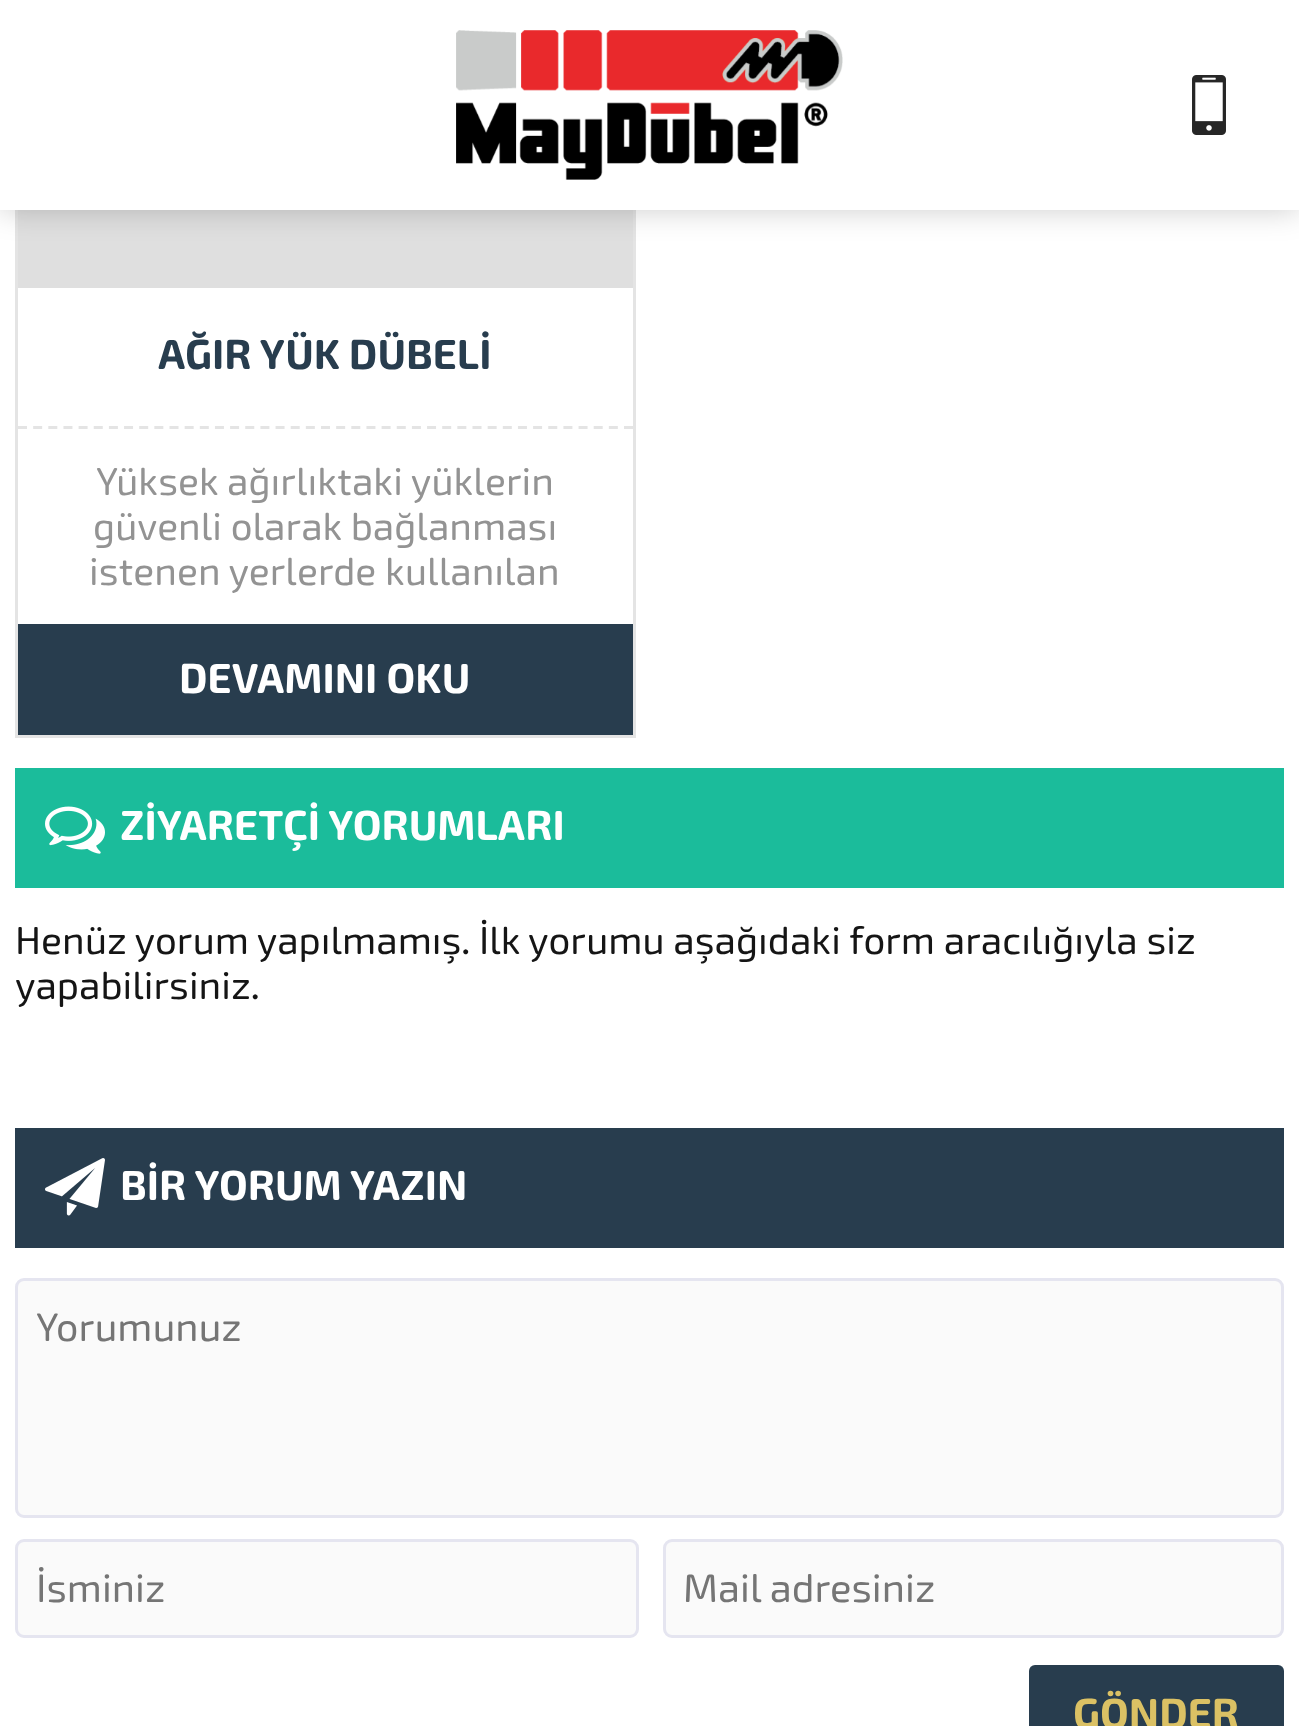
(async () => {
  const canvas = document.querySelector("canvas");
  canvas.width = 1299;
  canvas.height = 1726;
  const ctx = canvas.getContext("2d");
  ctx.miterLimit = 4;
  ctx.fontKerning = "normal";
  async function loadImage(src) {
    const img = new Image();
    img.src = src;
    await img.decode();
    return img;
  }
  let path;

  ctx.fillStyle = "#ffffff";
  ctx.fillRect(0, 0, 1299, 1726);
  ctx.strokeStyle = "#e4e4e4";
  ctx.lineWidth = 3;
  ctx.strokeRect(16.5, -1.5, 618, 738);
  ctx.fillStyle = "#dfdfdf";
  ctx.fillRect(18, 210, 615, 78);
  ctx.fillStyle = "rgba(0, 0, 0, 0.2)";
  ctx.filter = "blur(15px)";
  ctx.beginPath();
  ctx.rect(0, 0, 1299, 210);
  ctx.fill();
  ctx.filter = "none";
  ctx.fillStyle = "#ffffff";
  ctx.fillRect(0, 0, 1299, 210);
  ctx.drawImage(await loadImage("img/1.png"), 456, 30, 387, 150);
  ctx.drawImage(await loadImage("img/2.png"), 1192, 75, 34, 60);
  path = new Path2D("M18 427.5H633");
  ctx.setLineDash([9, 6.15]);
  ctx.stroke(path);
  ctx.fillStyle = "#283d4e";
  ctx.fillRect(18, 624, 615, 111);
  ctx.fillStyle = "#1bbc9b";
  ctx.fillRect(15, 768, 1269, 120);
  ctx.drawImage(await loadImage("img/3.png"), 45, 806, 60, 48);
  ctx.fillStyle = "#283d4e";
  ctx.fillRect(15, 1128, 1269, 120);
  ctx.drawImage(await loadImage("img/4.png"), 45, 1158, 60, 58);
  ctx.fillStyle = "#fafafa";
  ctx.beginPath();
  ctx.roundRect(16.5, 1279.5, 1266, 237, 7.5);
  ctx.fill();
  ctx.strokeStyle = "#e5e5f0";
  ctx.setLineDash([]);
  ctx.stroke();
  ctx.beginPath();
  ctx.roundRect(16.5, 1540.5, 621, 96, 7.5);
  ctx.fill();
  ctx.stroke();
  ctx.beginPath();
  ctx.roundRect(664.5, 1540.5, 618, 96, 7.5);
  ctx.fill();
  ctx.stroke();
  ctx.fillStyle = "#283d4e";
  ctx.beginPath();
  ctx.roundRect(1029, 1665, 255, 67, 6);
  ctx.fill();
  ctx.font = "bold 42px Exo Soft";
  ctx.fillText("AĞIR YÜK DÜBELİ", 158, 369);
  ctx.font = "39px Exo Soft";
  ctx.fillStyle = "#939393";
  for (const [text, x, y] of [
    ["Yüksek ağırlıktaki yüklerin", 96, 495],
    ["güvenli olarak bağlanması", 93, 540],
    ["istenen yerlerde kullanılan", 89, 585],
  ]) {
    ctx.fillText(text, x, y);
  }
  ctx.font = "bold 42px Exo Soft";
  ctx.fillStyle = "#ffffff";
  ctx.fillText("DEVAMINI OKU", 179, 693);
  ctx.fillText("ZİYARETÇİ YORUMLARI", 120, 840);
  ctx.font = "39px Exo Soft";
  ctx.fillStyle = "#151515";
  ctx.fillText("Henüz yorum yapılmamış. İlk yorumu aşağıdaki form aracılığıyla siz", 15, 954);
  ctx.fillText("yapabilirsiniz.", 15, 999);
  ctx.font = "bold 42px Exo Soft";
  ctx.fillStyle = "#ffffff";
  ctx.fillText("BİR YORUM YAZIN", 120, 1200);
  ctx.font = "40px Exo Soft";
  ctx.fillStyle = "#757575";
  for (const [text, x, y] of [
    ["Yorumunuz", 36, 1341],
    ["İsminiz", 36, 1602],
    ["Mail adresiniz", 683, 1602],
  ]) {
    ctx.fillText(text, x, y);
  }
  ctx.font = "bold 42px Exo Soft";
  ctx.fillStyle = "#dbc164";
  ctx.fillText("GÖNDER", 1073, 1728);
})();
